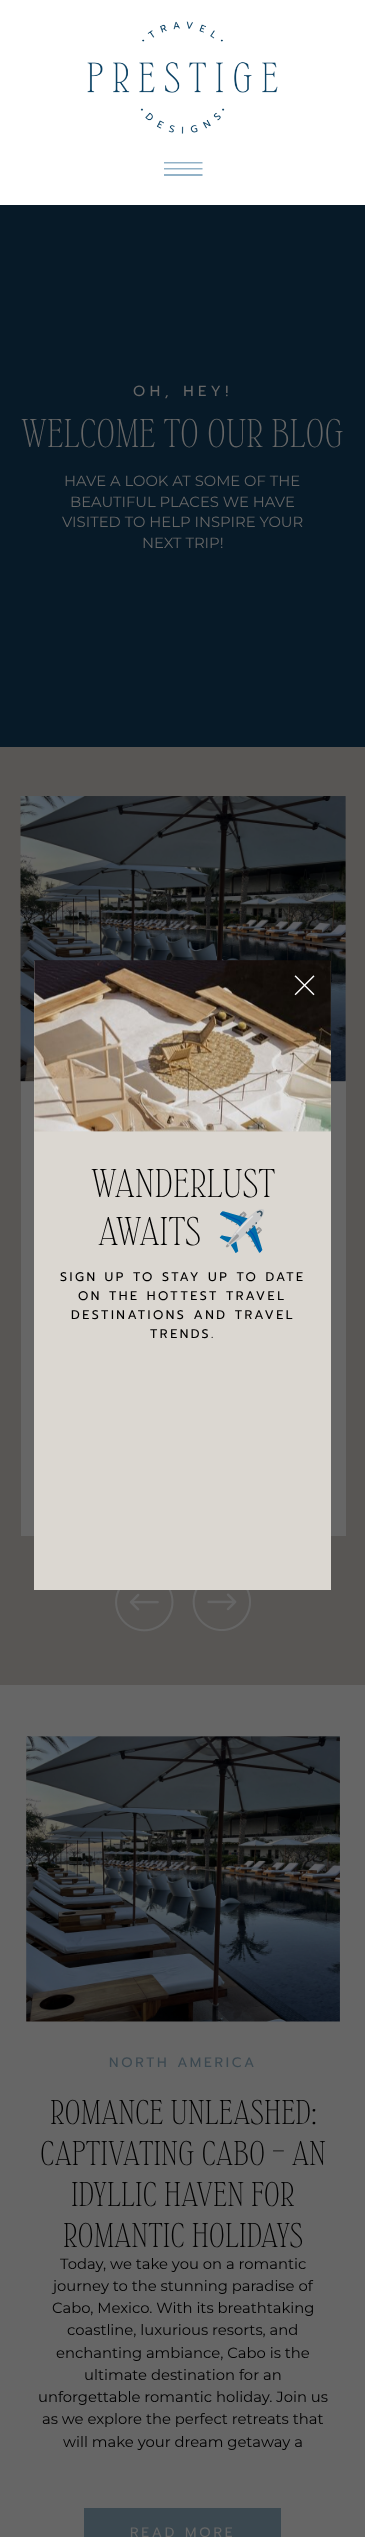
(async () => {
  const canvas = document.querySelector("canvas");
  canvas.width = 365;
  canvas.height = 2537;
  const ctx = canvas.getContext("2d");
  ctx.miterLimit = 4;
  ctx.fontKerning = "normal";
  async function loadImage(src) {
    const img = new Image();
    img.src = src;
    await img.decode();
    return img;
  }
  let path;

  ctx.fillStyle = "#666666";
  ctx.fillRect(0, 0, 365, 2537);
  ctx.fillStyle = "#ffffff";
  ctx.fillRect(0, 0, 365, 205);
  ctx.drawImage(await loadImage("img/1.png"), 87, 21, 191, 113);
  ctx.fillStyle = "#93b3c8";
  path = new Path2D("M164 174H202.5V176H164ZM164 168H202.5V169.5H164ZM164 162H202.5V163.5H164Z");
  ctx.fill(path);
  ctx.fillStyle = "#071a28";
  ctx.fillRect(0, 205, 365, 542);
  ctx.fillStyle = "#585654";
  ctx.fillRect(0, 747, 365, 938);
  ctx.drawImage(await loadImage("img/2.png"), 115, 1590, 59, 42);
  ctx.drawImage(await loadImage("img/3.png"), 192, 1590, 59, 41);
  ctx.fillStyle = "#666666";
  ctx.fillRect(21, 1080, 325, 456);
  ctx.drawImage(await loadImage("img/4.png"), 20, 796, 326, 286);
  ctx.fillStyle = "#dbd7d1";
  ctx.fillRect(34, 961, 297, 629);
  ctx.drawImage(await loadImage("img/5.png"), 34, 960, 297, 172);
  ctx.drawImage(await loadImage("img/6.png"), 294, 975, 21, 21);
  ctx.drawImage(await loadImage("img/7.png"), 26, 1736, 314, 286);
  ctx.fillStyle = "#3b4850";
  ctx.fillRect(84, 2508, 197, 29);
  ctx.letterSpacing = "4.5px";
  ctx.font = "14.8px Prompt";
  ctx.fillStyle = "#666666";
  ctx.fillText("OH, HEY!", 133, 396);
  ctx.letterSpacing = "0px";
  ctx.font = "100 40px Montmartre";
  ctx.fillText("WELCOME TO OUR BLOG", 21, 447);
  ctx.font = "14.8px Montserrat";
  for (const [text, x, y] of [
    ["HAVE A LOOK AT SOME OF THE", 64, 486],
    ["BEAUTIFUL PLACES WE HAVE", 70, 507],
    ["VISITED TO HELP INSPIRE YOUR", 62, 527],
    ["NEXT TRIP!", 142, 548],
  ]) {
    ctx.fillText(text, x, y);
  }
  ctx.font = "100 40px Montmartre";
  ctx.fillStyle = "#000000";
  ctx.fillText("WANDERLUST", 91, 1197);
  ctx.fillText("AWAITS", 98, 1245);
  ctx.font = "40px Noto Color Emoji";
  ctx.fillText("✈️", 217, 1245);
  ctx.letterSpacing = "2.5px";
  ctx.font = "12.5px Prompt";
  for (const [text, x, y] of [
    ["SIGN UP TO STAY UP TO DATE", 60, 1281],
    ["ON THE HOTTEST TRAVEL", 78, 1300],
    ["DESTINATIONS AND TRAVEL", 71, 1319],
    ["TRENDS.", 150, 1338],
  ]) {
    ctx.fillText(text, x, y);
  }
  ctx.letterSpacing = "2.75px";
  ctx.font = "13.75px Prompt";
  ctx.fillStyle = "#3b4850";
  ctx.fillText("NORTH AMERICA", 109, 2067);
  ctx.letterSpacing = "0px";
  ctx.font = "100 34.25px Montmartre";
  ctx.fillStyle = "#000000";
  for (const [text, x, y] of [
    ["ROMANCE UNLEASHED:", 50, 2124],
    ["CAPTIVATING CABO – AN", 40, 2165],
    ["IDYLLIC HAVEN FOR", 71, 2206],
    ["ROMANTIC HOLIDAYS", 63, 2247],
  ]) {
    ctx.fillText(text, x, y);
  }
  ctx.font = "14.8px Montserrat";
  for (const [text, x, y] of [
    ["Today, we take you on a romantic", 60, 2269],
    ["journey to the stunning paradise of", 53, 2291],
    ["Cabo, Mexico. With its breathtaking", 52, 2313],
    ["coastline, luxurious resorts, and", 67, 2335],
    ["enchanting ambiance, Cabo is the", 56, 2358],
    ["ultimate destination for an", 84, 2380],
    ["unforgettable romantic holiday. Join us", 38, 2402],
    ["as we explore the perfect retreats that", 42, 2424],
    ["will make your dream getaway a", 63, 2447],
  ]) {
    ctx.fillText(text, x, y);
  }
  ctx.letterSpacing = "2.75px";
  ctx.font = "13.75px Prompt";
  ctx.fillStyle = "#666666";
  ctx.fillText("READ MORE", 130, 2537);
})();
